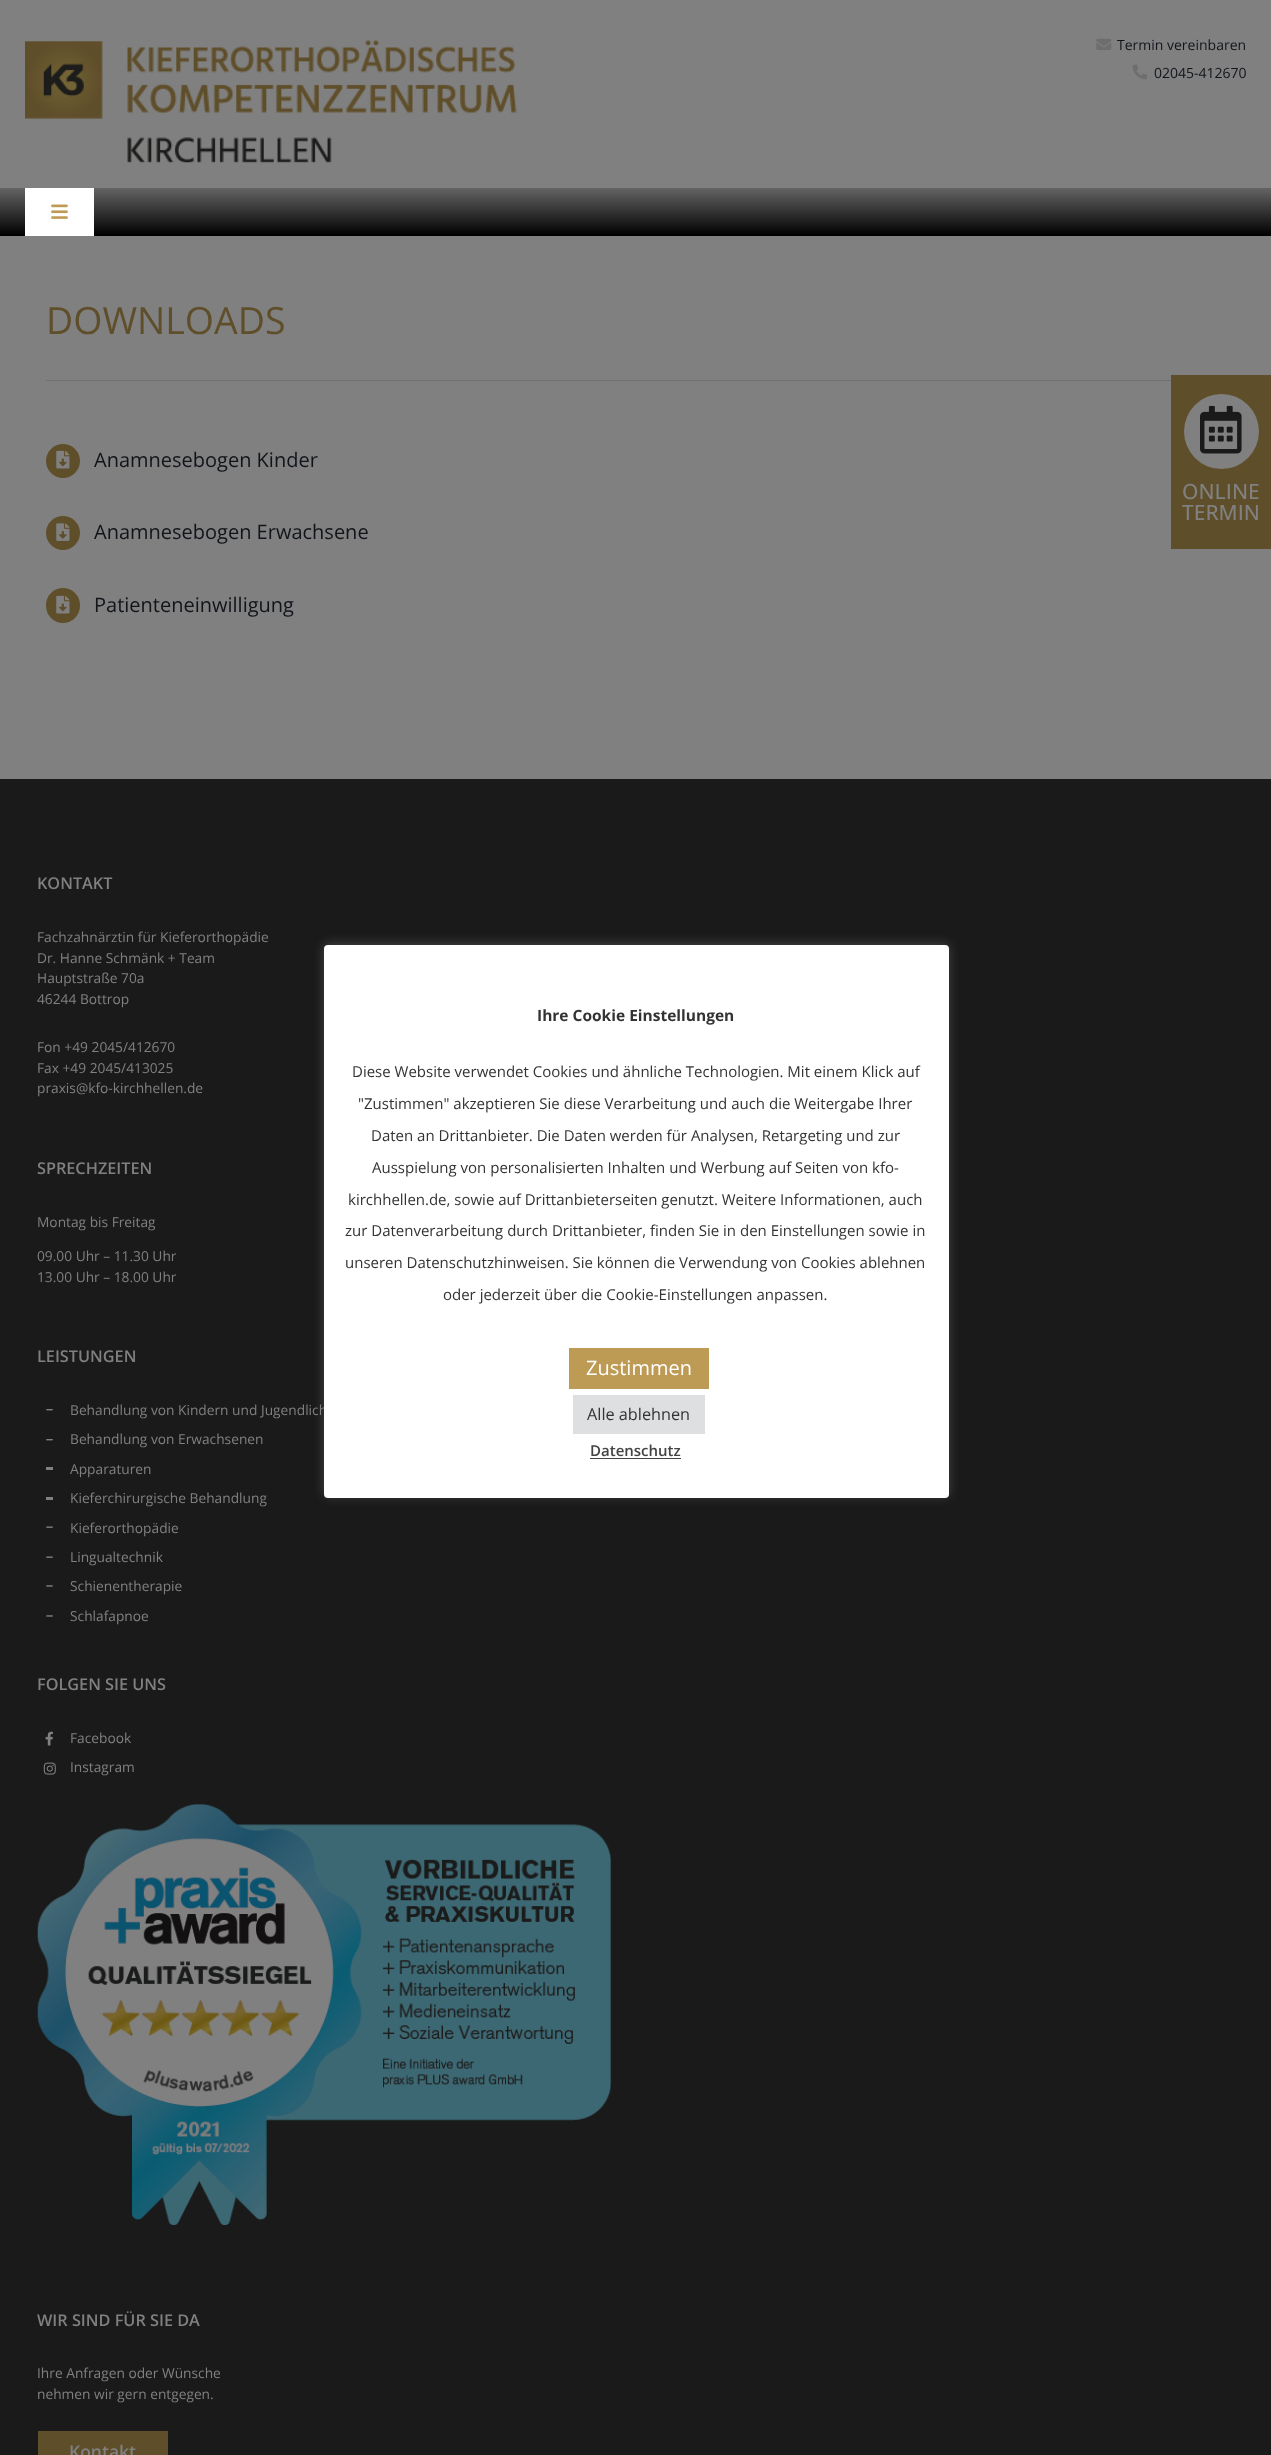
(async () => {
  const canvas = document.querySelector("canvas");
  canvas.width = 1271;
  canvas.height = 2455;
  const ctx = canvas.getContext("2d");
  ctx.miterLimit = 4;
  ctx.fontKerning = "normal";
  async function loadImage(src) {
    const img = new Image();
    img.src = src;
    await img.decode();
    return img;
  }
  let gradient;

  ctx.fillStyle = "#808080";
  ctx.fillRect(0, 0, 1271, 2455);
  ctx.drawImage(await loadImage("img/1.png"), 25, 39, 492, 124);
  ctx.drawImage(await loadImage("img/2.png"), 1096, 38, 16, 12);
  ctx.drawImage(await loadImage("img/3.png"), 1132, 64, 16, 16);
  gradient = ctx.createLinearGradient(636, 187, 636, 236);
  gradient.addColorStop(0, "#666666");
  gradient.addColorStop(1, "#000000");
  ctx.fillStyle = gradient;
  ctx.fillRect(0, 188, 1271, 48);
  ctx.fillStyle = "#ffffff";
  ctx.fillRect(25, 188, 69, 48);
  ctx.drawImage(await loadImage("img/4.png"), 51, 204, 17, 15);
  ctx.fillStyle = "#717171";
  ctx.fillRect(46, 380, 1125, 1);
  ctx.fillStyle = "#5f4e2a";
  ctx.beginPath();
  ctx.arc(63, 461, 17, 0, Math.PI * 2);
  ctx.fill();
  ctx.drawImage(await loadImage("img/5.png"), 56, 450, 14, 19);
  ctx.beginPath();
  ctx.arc(63, 533, 17, 0, Math.PI * 2);
  ctx.fill();
  ctx.drawImage(await loadImage("img/6.png"), 56, 523, 14, 18);
  ctx.beginPath();
  ctx.roundRect(46, 588, 34, 35, 17);
  ctx.fill();
  ctx.drawImage(await loadImage("img/5.png"), 56, 595, 14, 19);
  ctx.fillStyle = "#1a1a1a";
  ctx.fillRect(0, 779, 1271, 1676);
  ctx.drawImage(await loadImage("img/7.png"), 46, 1409, 7, 2);
  ctx.drawImage(await loadImage("img/7.png"), 46, 1439, 7, 2);
  ctx.fillStyle = "#808080";
  ctx.fillRect(46, 1467, 7, 3);
  ctx.fillRect(46, 1497, 7, 3);
  ctx.drawImage(await loadImage("img/8.png"), 46, 1526, 7, 2);
  ctx.drawImage(await loadImage("img/8.png"), 46, 1556, 7, 2);
  ctx.drawImage(await loadImage("img/9.png"), 46, 1585, 7, 2);
  ctx.drawImage(await loadImage("img/9.png"), 46, 1615, 7, 2);
  ctx.drawImage(await loadImage("img/10.png"), 45, 1731, 8, 15);
  ctx.drawImage(await loadImage("img/11.png"), 43, 1762, 13, 13);
  ctx.drawImage(await loadImage("img/12.png"), 37, 1803, 575, 422);
  ctx.fillStyle = "#5f4e2a";
  ctx.fillRect(38, 2431, 130, 24);
  ctx.fillRect(1171, 375, 100, 174);
  ctx.fillStyle = "#808080";
  ctx.beginPath();
  ctx.arc(1221.5, 431.5, 37.5, 0, Math.PI * 2);
  ctx.fill();
  ctx.drawImage(await loadImage("img/13.png"), 1200, 405, 42, 49);
  ctx.fillStyle = "rgba(172, 171, 171, 0.3)";
  ctx.filter = "blur(6px)";
  ctx.beginPath();
  ctx.roundRect(324, 944, 625, 552, 4);
  ctx.fill();
  ctx.filter = "none";
  ctx.font = "14px Open Sans";
  ctx.fillStyle = "#11151a";
  ctx.fillText("Termin vereinbaren", 1117, 50);
  ctx.fillText("02045-412670", 1154, 78);
  ctx.font = "37.5px Open Sans";
  ctx.fillStyle = "#5f4e2a";
  ctx.fillText("DOWNLOADS", 46, 334);
  ctx.font = "20px Open Sans";
  ctx.fillStyle = "#11151a";
  for (const [text, x, y] of [
    ["Anamnesebogen Kinder", 94, 467],
    ["Anamnesebogen Erwachsene", 94, 539],
    ["Patienteneinwilligung", 94, 612],
  ]) {
    ctx.fillText(text, x, y);
  }
  ctx.font = "600 16.25px Open Sans";
  ctx.fillStyle = "#808080";
  ctx.fillText("KONTAKT", 37, 889);
  ctx.font = "13.75px Open Sans";
  for (const [text, x, y] of [
    ["Fachzahnärztin für Kieferorthopädie", 37, 942],
    ["Dr. Hanne Schmänk + Team", 37, 963],
    ["Hauptstraße 70a", 37, 983],
    ["46244 Bottrop", 37, 1004],
    ["Fon +49 2045/412670", 37, 1052],
    ["Fax +49 2045/413025", 37, 1073],
    ["praxis@kfo-kirchhellen.de", 37, 1093],
  ]) {
    ctx.fillText(text, x, y);
  }
  ctx.font = "600 16.25px Open Sans";
  ctx.fillText("SPRECHZEITEN", 37, 1174);
  ctx.font = "13.75px Open Sans";
  for (const [text, x, y] of [
    ["Montag bis Freitag", 37, 1227],
    ["09.00 Uhr – 11.30 Uhr", 37, 1261],
    ["13.00 Uhr – 18.00 Uhr", 37, 1282],
  ]) {
    ctx.fillText(text, x, y);
  }
  ctx.font = "600 16.25px Open Sans";
  ctx.fillText("LEISTUNGEN", 37, 1362);
  ctx.font = "13.75px Open Sans";
  for (const [text, x, y] of [
    ["Behandlung von Kindern und Jugendlich", 70, 1415],
    ["Behandlung von Erwachsenen", 70, 1444],
    ["Apparaturen", 70, 1474],
    ["Kieferchirurgische Behandlung", 70, 1503],
    ["Kieferorthopädie", 70, 1533],
    ["Lingualtechnik", 70, 1562],
    ["Schienentherapie", 70, 1591],
    ["Schlafapnoe", 70, 1621],
  ]) {
    ctx.fillText(text, x, y);
  }
  ctx.font = "600 16.25px Open Sans";
  ctx.fillText("FOLGEN SIE UNS", 37, 1690);
  ctx.font = "13.75px Open Sans";
  ctx.fillText("Facebook", 70, 1743);
  ctx.fillText("Instagram", 70, 1772);
  ctx.font = "600 16.25px Open Sans";
  ctx.fillText("WIR SIND FÜR SIE DA", 37, 2326);
  ctx.font = "13.75px Open Sans";
  ctx.fillText("Ihre Anfragen oder Wünsche", 37, 2378);
  ctx.fillText("nehmen wir gern entgegen.", 37, 2399);
  ctx.font = "600 17.5px Open Sans";
  ctx.fillText("Kontakt", 69, 2458);
  ctx.font = "500 21px Open Sans";
  ctx.fillText("ONLINE", 1182, 499);
  ctx.fillText("TERMIN", 1182, 520);
  ctx.fillStyle = "#ffffff";
  ctx.beginPath();
  ctx.roundRect(324, 945, 625, 553, 4);
  ctx.fill();
  ctx.font = "bold 15.5px Open Sans";
  ctx.fillStyle = "#333333";
  ctx.fillText("Ihre Cookie Einstellungen", 537, 1021);
  ctx.font = "15px Open Sans";
  for (const [text, x, y] of [
    ["Diese Website verwendet Cookies und ähnliche Technologien. Mit einem Klick auf", 352, 1077],
    ["\"Zustimmen\" akzeptieren Sie diese Verarbeitung und auch die Weitergabe Ihrer", 358, 1109],
    ["Daten an Drittanbieter. Die Daten werden für Analysen, Retargeting und zur", 371, 1141],
    ["Ausspielung von personalisierten Inhalten und Werbung auf Seiten von kfo-", 372, 1173],
    ["kirchhellen.de, sowie auf Drittanbieterseiten genutzt. Weitere Informationen, auch", 348, 1205],
    ["zur Datenverarbeitung durch Drittanbieter, finden Sie in den Einstellungen sowie in", 345, 1236],
    ["unseren Datenschutzhinweisen. Sie können die Verwendung von Cookies ablehnen", 345, 1268],
    ["oder jederzeit über die Cookie-Einstellungen anpassen.", 443, 1300],
  ]) {
    ctx.fillText(text, x, y);
  }
  ctx.fillStyle = "#be9b54";
  ctx.fillRect(569, 1348, 140, 41);
  ctx.font = "20px Open Sans";
  ctx.fillStyle = "#ffffff";
  ctx.fillText("Zustimmen", 586, 1375);
  ctx.fillStyle = "#dedfe0";
  ctx.fillRect(573, 1395, 132, 39);
  ctx.font = "16.25px Open Sans";
  ctx.fillStyle = "#333333";
  ctx.fillText("Alle ablehnen", 587, 1420);
  ctx.font = "600 15px Open Sans";
  ctx.fillStyle = "#444444";
  ctx.fillText("Datenschutz", 590, 1456);
  ctx.fillRect(590, 1458, 91, 1);
})();
